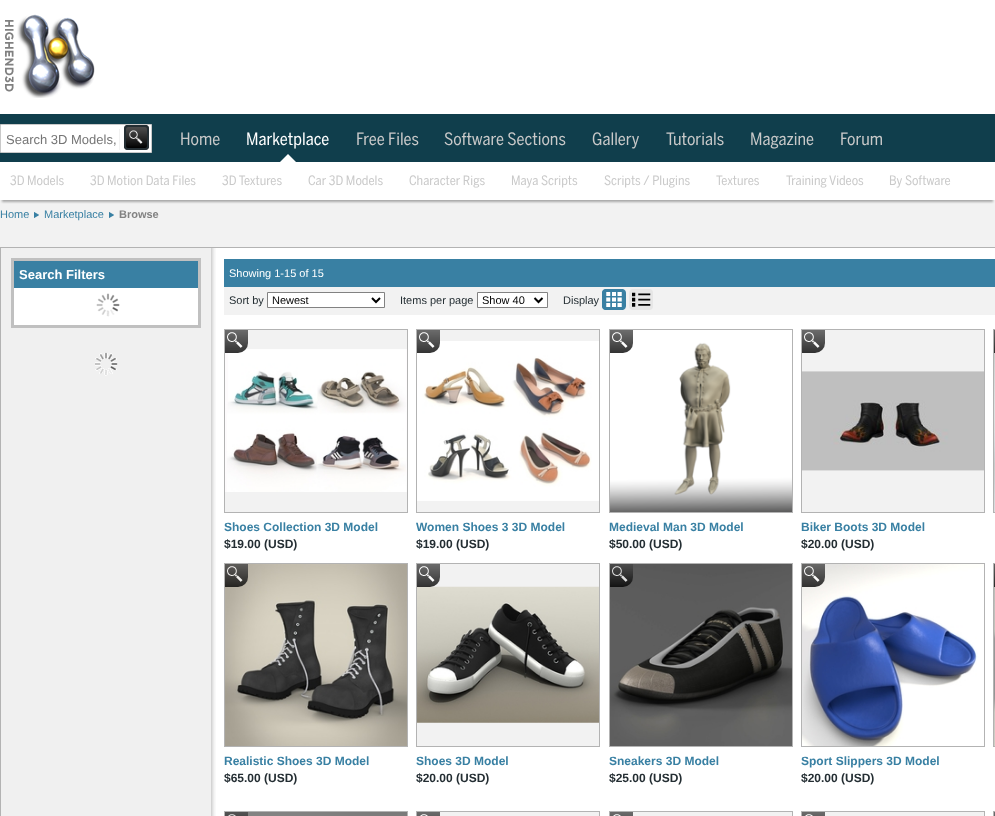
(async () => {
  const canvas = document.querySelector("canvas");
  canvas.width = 995;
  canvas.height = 816;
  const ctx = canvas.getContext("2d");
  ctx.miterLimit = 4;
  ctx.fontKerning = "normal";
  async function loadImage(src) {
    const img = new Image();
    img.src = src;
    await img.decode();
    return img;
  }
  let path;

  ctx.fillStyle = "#f2f2f2";
  ctx.fillRect(0, 0, 995, 816);
  ctx.fillStyle = "#ffffff";
  ctx.fillRect(0, 0, 995, 114);
  ctx.drawImage(await loadImage("img/1.png"), 5, 14, 90, 84);
  ctx.fillStyle = "#103e4c";
  ctx.fillRect(0, 114, 995, 48);
  ctx.fillStyle = "#ffffff";
  path = new Path2D("M296 162H280L288 154Z");
  ctx.fill(path);
  ctx.fillStyle = "rgba(0, 0, 0, 0.3)";
  ctx.filter = "blur(1px)";
  ctx.beginPath();
  ctx.rect(2, 168, 991, 34);
  ctx.fill();
  ctx.filter = "none";
  ctx.fillStyle = "#ffffff";
  ctx.fillRect(0, 162, 995, 38);
  ctx.beginPath();
  ctx.rect(0.5, 124.5, 151, 28);
  ctx.fill();
  ctx.strokeStyle = "#c9c9c9";
  ctx.stroke();
  ctx.fillStyle = "#f2f2f2";
  ctx.fillRect(119, 129, 1, 21);
  ctx.drawImage(await loadImage("img/2.png"), 124, 125, 25, 25);
  ctx.beginPath();
  ctx.roundRect(125, 126, 23, 23, 3);
  ctx.strokeStyle = "#242e33";
  ctx.lineWidth = 2;
  ctx.stroke();
  ctx.drawImage(await loadImage("img/3.png"), 34, 212, 5, 6);
  ctx.drawImage(await loadImage("img/3.png"), 109, 212, 5, 6);
  ctx.fillStyle = "#ffffff";
  ctx.fillRect(216, 248, 779, 568);
  ctx.drawImage(await loadImage("img/4.png"), 1, 248, 215, 568);
  ctx.strokeStyle = "#b3b3b3";
  ctx.lineWidth = 1;
  ctx.strokeRect(0.5, 247.5, 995, 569);
  ctx.strokeStyle = "#c0c0c0";
  ctx.lineWidth = 3;
  ctx.strokeRect(12.5, 259.5, 187, 67);
  ctx.fillStyle = "#3980a3";
  ctx.fillRect(14, 261, 184, 27);
  ctx.fillStyle = "#ffffff";
  ctx.fillRect(14, 288, 184, 37);
  ctx.drawImage(await loadImage("img/5.png"), 96, 293, 24, 24);
  ctx.drawImage(await loadImage("img/6.png"), 95, 352, 23, 24);
  ctx.fillStyle = "#3980a3";
  ctx.fillRect(224, 259, 771, 28);
  ctx.fillStyle = "#f2f2f2";
  ctx.fillRect(224, 287, 771, 28);
  ctx.fillStyle = "#ffffff";
  ctx.beginPath();
  ctx.rect(267.5, 292.5, 117, 15);
  ctx.fill();
  ctx.strokeStyle = "#828282";
  ctx.lineWidth = 1;
  ctx.stroke();
  path = new Path2D("M372 298L376 302L380 298");
  ctx.strokeStyle = "#000000";
  ctx.lineWidth = 2;
  ctx.stroke(path);
  ctx.beginPath();
  ctx.rect(477.5, 292.5, 70, 15);
  ctx.fill();
  ctx.strokeStyle = "#828282";
  ctx.lineWidth = 1;
  ctx.stroke();
  path = new Path2D("M534.5 298L538.5 302L542.5 298");
  ctx.strokeStyle = "#000000";
  ctx.lineWidth = 2;
  ctx.stroke(path);
  ctx.drawImage(await loadImage("img/7.png"), 602, 289, 24, 21);
  ctx.drawImage(await loadImage("img/8.png"), 629, 289, 24, 21);
  ctx.strokeStyle = "#b3b3b3";
  ctx.lineWidth = 1;
  ctx.strokeRect(993.5, 329.5, 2, 183);
  ctx.drawImage(await loadImage("img/9.png"), 994, 330, 1, 182);
  ctx.drawImage(await loadImage("img/10.png"), 994, 330, 1, 23);
  ctx.strokeRect(224.5, 329.5, 183, 183);
  ctx.fillStyle = "#f2f2f2";
  ctx.fillRect(225, 330, 182, 182);
  ctx.drawImage(await loadImage("img/11.png"), 225, 349, 182, 143);
  ctx.drawImage(await loadImage("img/12.png"), 225, 330, 23, 23);
  ctx.strokeRect(416.5, 329.5, 183, 183);
  ctx.fillRect(417, 330, 182, 182);
  ctx.drawImage(await loadImage("img/13.png"), 417, 341, 182, 160);
  ctx.drawImage(await loadImage("img/14.png"), 417, 330, 23, 23);
  ctx.strokeRect(609.5, 329.5, 183, 183);
  ctx.drawImage(await loadImage("img/15.png"), 610, 330, 182, 182);
  ctx.drawImage(await loadImage("img/16.png"), 610, 330, 23, 23);
  ctx.strokeRect(801.5, 329.5, 183, 183);
  ctx.fillRect(802, 330, 182, 182);
  ctx.drawImage(await loadImage("img/17.png"), 802, 371, 182, 100);
  ctx.drawImage(await loadImage("img/18.png"), 802, 330, 23, 23);
  ctx.strokeRect(993.5, 563.5, 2, 183);
  ctx.drawImage(await loadImage("img/19.png"), 994, 564, 1, 182);
  ctx.drawImage(await loadImage("img/20.png"), 994, 564, 1, 23);
  ctx.strokeRect(224.5, 563.5, 183, 183);
  ctx.drawImage(await loadImage("img/21.png"), 225, 564, 182, 182);
  ctx.drawImage(await loadImage("img/22.png"), 225, 564, 23, 23);
  ctx.strokeRect(416.5, 563.5, 183, 183);
  ctx.fillRect(417, 564, 182, 182);
  ctx.drawImage(await loadImage("img/23.png"), 417, 586, 182, 137);
  ctx.drawImage(await loadImage("img/24.png"), 417, 564, 23, 23);
  ctx.strokeRect(609.5, 563.5, 183, 183);
  ctx.drawImage(await loadImage("img/25.png"), 610, 564, 182, 182);
  ctx.drawImage(await loadImage("img/26.png"), 610, 564, 23, 23);
  ctx.strokeRect(801.5, 563.5, 183, 183);
  ctx.drawImage(await loadImage("img/27.png"), 802, 564, 182, 182);
  ctx.drawImage(await loadImage("img/28.png"), 802, 564, 23, 23);
  ctx.strokeRect(224.5, 811.5, 183, 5);
  ctx.drawImage(await loadImage("img/29.png"), 225, 812, 182, 4);
  ctx.drawImage(await loadImage("img/30.png"), 225, 812, 23, 4);
  ctx.strokeRect(416.5, 811.5, 183, 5);
  ctx.fillRect(417, 812, 182, 4);
  ctx.drawImage(await loadImage("img/31.png"), 417, 812, 23, 4);
  ctx.strokeRect(609.5, 811.5, 183, 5);
  ctx.fillRect(610, 812, 182, 4);
  ctx.drawImage(await loadImage("img/31.png"), 610, 812, 23, 4);
  ctx.strokeRect(801.5, 811.5, 183, 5);
  ctx.fillRect(802, 812, 182, 4);
  ctx.drawImage(await loadImage("img/31.png"), 802, 812, 23, 4);
  ctx.strokeRect(993.5, 811.5, 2, 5);
  ctx.drawImage(await loadImage("img/32.png"), 994, 812, 1, 4);
  ctx.font = "17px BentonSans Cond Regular";
  ctx.fillStyle = "#c9c9c9";
  ctx.fillText("Home", 180, 145);
  ctx.fillStyle = "#ffffff";
  ctx.fillText("Marketplace", 246, 145);
  ctx.fillStyle = "#c9c9c9";
  for (const [text, x, y] of [
    ["Free Files", 356, 145],
    ["Software Sections", 444, 145],
    ["Gallery", 592, 145],
    ["Tutorials", 666, 145],
    ["Magazine", 750, 145],
    ["Forum", 840, 145],
  ]) {
    ctx.fillText(text, x, y);
  }
  ctx.font = "13px BentonSans Cond Regular";
  for (const [text, x, y] of [
    ["3D Models", 10, 185],
    ["3D Motion Data Files", 90, 185],
    ["3D Textures", 222, 185],
    ["Car 3D Models", 308, 185],
    ["Character Rigs", 409, 185],
    ["Maya Scripts", 511, 185],
    ["Scripts / Plugins", 604, 185],
    ["Textures", 716, 185],
    ["Training Videos", 786, 185],
    ["By Software", 889, 185],
  ]) {
    ctx.fillText(text, x, y);
  }
  ctx.font = "13px Liberation Sans";
  ctx.fillStyle = "#757575";
  ctx.fillText("Search 3D Models,", 6, 144);
  ctx.font = "11px Liberation Sans";
  ctx.fillStyle = "#3980a3";
  ctx.fillText("Home", 0, 218);
  ctx.fillText("Marketplace", 44, 218);
  ctx.font = "bold 11px Liberation Sans";
  ctx.fillStyle = "#828282";
  ctx.fillText("Browse", 119, 218);
  ctx.font = "bold 13px Liberation Sans";
  ctx.fillStyle = "#ffffff";
  ctx.fillText("Search Filters", 19, 279);
  ctx.font = "11px Liberation Sans";
  ctx.fillText("Showing 1-15 of 15", 229, 277);
  ctx.fillStyle = "#242e33";
  ctx.fillText("Sort by", 229, 304);
  ctx.fillStyle = "#000000";
  ctx.fillText("Newest", 272, 304);
  ctx.fillStyle = "#242e33";
  ctx.fillText("Items per page", 400, 304);
  ctx.fillStyle = "#000000";
  ctx.fillText("Show 40", 482, 304);
  ctx.fillStyle = "#242e33";
  ctx.fillText("Display", 563, 304);
  ctx.font = "bold 12px Liberation Sans";
  ctx.fillStyle = "#3980a3";
  ctx.fillText("Shoes Collection 3D Model", 224, 531);
  ctx.fillStyle = "#242e33";
  ctx.fillText("$19.00 (USD)", 224, 548);
  ctx.fillStyle = "#3980a3";
  ctx.fillText("Women Shoes 3 3D Model", 416, 531);
  ctx.fillStyle = "#242e33";
  ctx.fillText("$19.00 (USD)", 416, 548);
  ctx.fillStyle = "#3980a3";
  ctx.fillText("Medieval Man 3D Model", 609, 531);
  ctx.fillStyle = "#242e33";
  ctx.fillText("$50.00 (USD)", 609, 548);
  ctx.fillStyle = "#3980a3";
  ctx.fillText("Biker Boots 3D Model", 801, 531);
  ctx.fillStyle = "#242e33";
  ctx.fillText("$20.00 (USD)", 801, 548);
  ctx.fillStyle = "#3980a3";
  ctx.fillText("Realistic Shoes 3D Model", 224, 765);
  ctx.fillStyle = "#242e33";
  ctx.fillText("$65.00 (USD)", 224, 782);
  ctx.fillStyle = "#3980a3";
  ctx.fillText("Shoes 3D Model", 416, 765);
  ctx.fillStyle = "#242e33";
  ctx.fillText("$20.00 (USD)", 416, 782);
  ctx.fillStyle = "#3980a3";
  ctx.fillText("Sneakers 3D Model", 609, 765);
  ctx.fillStyle = "#242e33";
  ctx.fillText("$25.00 (USD)", 609, 782);
  ctx.fillStyle = "#3980a3";
  ctx.fillText("Sport Slippers 3D Model", 801, 765);
  ctx.fillStyle = "#242e33";
  ctx.fillText("$20.00 (USD)", 801, 782);
})();
